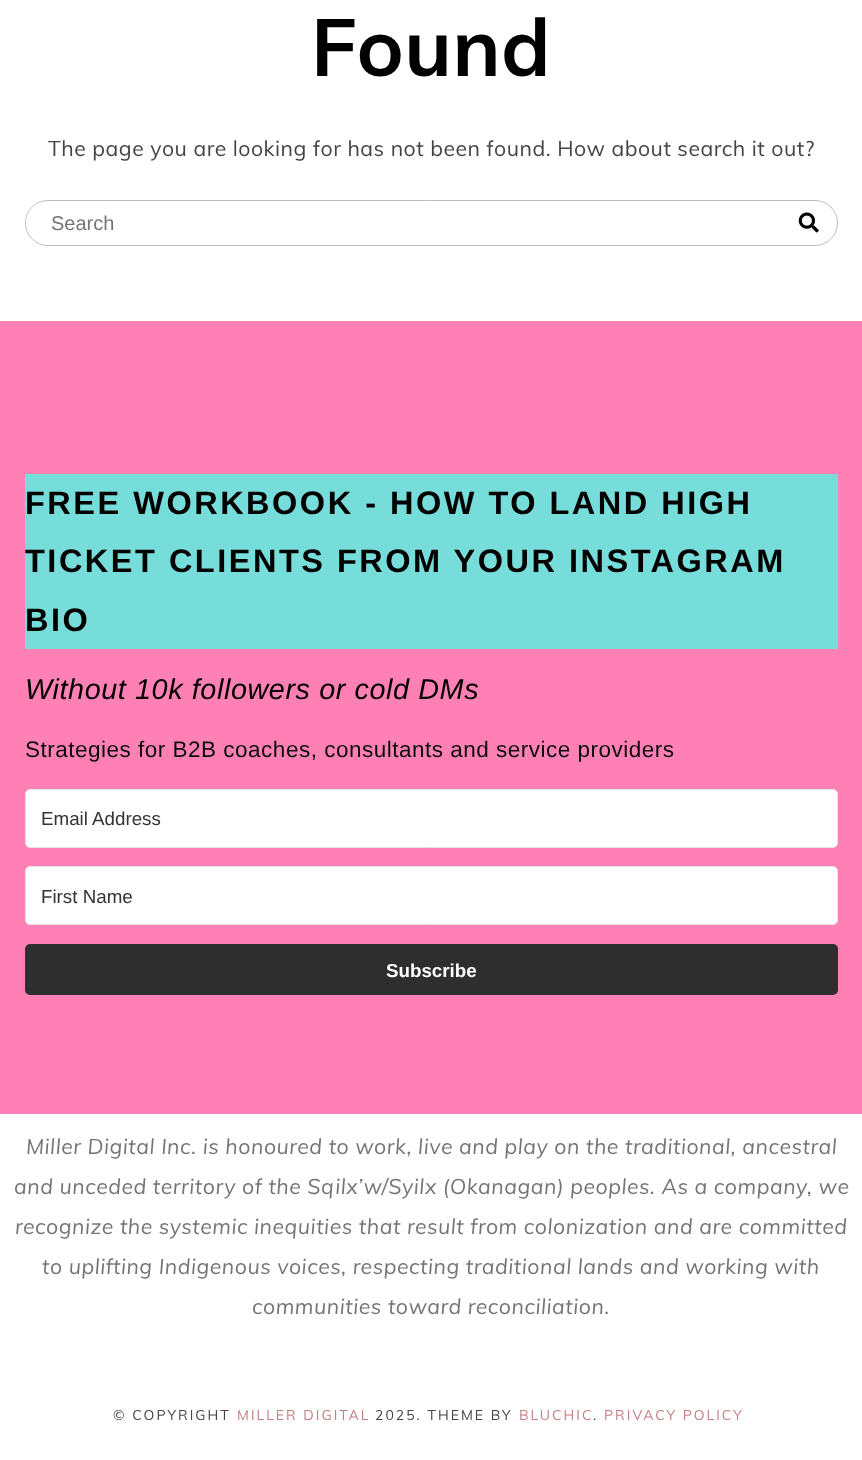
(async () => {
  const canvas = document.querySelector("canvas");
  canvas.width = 862;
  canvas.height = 1460;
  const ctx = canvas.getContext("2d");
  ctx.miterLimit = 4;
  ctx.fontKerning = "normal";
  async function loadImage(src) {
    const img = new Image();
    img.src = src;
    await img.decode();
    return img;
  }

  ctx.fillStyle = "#ffffff";
  ctx.fillRect(0, 0, 862, 1460);
  ctx.beginPath();
  ctx.roundRect(25.5, 200.5, 812, 45, 22.5);
  ctx.strokeStyle = "#bbbbbb";
  ctx.stroke();
  ctx.save();
  ctx.beginPath();
  ctx.roundRect(26, 201, 810, 44, 22);
  ctx.clip();
  ctx.beginPath();
  ctx.roundRect(26, 203, 810, 42, [0, 0, 22, 22]);
  ctx.fill();
  ctx.restore();
  ctx.drawImage(await loadImage("img/1.png"), 798, 212, 21, 21);
  ctx.fillStyle = "#ff80b4";
  ctx.fillRect(0, 321, 862, 793);
  ctx.fillStyle = "#76ddda";
  ctx.fillRect(25, 474, 813, 175);
  ctx.fillStyle = "#ffffff";
  ctx.beginPath();
  ctx.roundRect(25.5, 789.5, 812, 58, 4.5);
  ctx.fill();
  ctx.strokeStyle = "#e3e3e3";
  ctx.stroke();
  ctx.beginPath();
  ctx.roundRect(25.5, 866.5, 812, 58, 4.5);
  ctx.fill();
  ctx.stroke();
  ctx.fillStyle = "#2e2e2e";
  ctx.beginPath();
  ctx.roundRect(25, 944, 813, 51, 5);
  ctx.fill();
  ctx.letterSpacing = "0.5px";
  ctx.font = "bold 80px Muli";
  ctx.fillStyle = "#000000";
  ctx.fillText("Found", 311, 76);
  ctx.font = "21.25px Muli";
  ctx.fillStyle = "#444444";
  ctx.fillText("The page you are looking for has not been found. How about search it out?", 48, 156);
  ctx.letterSpacing = "0px";
  ctx.font = "20px Liberation Sans";
  ctx.fillStyle = "#757575";
  ctx.fillText("Search", 51, 230);
  ctx.letterSpacing = "2.5px";
  ctx.font = "bold 32.5px Liberation Sans";
  ctx.fillStyle = "#000000";
  for (const [text, x, y] of [
    ["FREE WORKBOOK - HOW TO LAND HIGH", 25, 514],
    ["TICKET CLIENTS FROM YOUR INSTAGRAM", 25, 572],
    ["BIO", 25, 631],
  ]) {
    ctx.fillText(text, x, y);
  }
  ctx.letterSpacing = "0.6px";
  ctx.font = "italic 28.75px Liberation Sans";
  ctx.fillText("Without 10k followers or cold DMs", 25, 699);
  ctx.letterSpacing = "0.5px";
  ctx.font = "22.5px Liberation Sans";
  ctx.fillStyle = "#0c0c0c";
  ctx.fillText("Strategies for B2B coaches, consultants and service providers", 25, 757);
  ctx.letterSpacing = "0px";
  ctx.font = "18.75px Liberation Sans";
  ctx.fillStyle = "#333333";
  ctx.fillText("Email Address", 41, 825);
  ctx.fillText("First Name", 41, 903);
  ctx.font = "bold 18.75px Liberation Sans";
  ctx.fillStyle = "#ffffff";
  ctx.fillText("Subscribe", 386, 977);
  ctx.letterSpacing = "0.5px";
  ctx.font = "italic 21.25px Muli";
  ctx.fillStyle = "#757575";
  for (const [text, x, y] of [
    ["Miller Digital Inc. is honoured to work, live and play on the traditional, ancestral", 26, 1154],
    ["and unceded territory of the Sqilx’w/Syilx (Okanagan) peoples. As a company, we", 14, 1194],
    ["recognize the systemic inequities that result from colonization and are committed", 15, 1234],
    ["to uplifting Indigenous voices, respecting traditional lands and working with", 42, 1274],
    ["communities toward reconciliation.", 252, 1314],
  ]) {
    ctx.fillText(text, x, y);
  }
  ctx.letterSpacing = "2px";
  ctx.font = "14px Muli";
  ctx.fillStyle = "#444444";
  ctx.fillText("© COPYRIGHT", 113, 1420);
  ctx.fillStyle = "#c77d81";
  ctx.fillText("MILLER DIGITAL", 237, 1420);
  ctx.fillStyle = "#444444";
  ctx.fillText("2025. THEME BY", 375, 1420);
  ctx.fillStyle = "#c77d81";
  ctx.fillText("BLUCHIC", 519, 1420);
  ctx.fillStyle = "#444444";
  ctx.fillText(".", 593, 1420);
  ctx.fillStyle = "#c77d81";
  ctx.fillText("PRIVACY POLICY", 604, 1420);
})();
